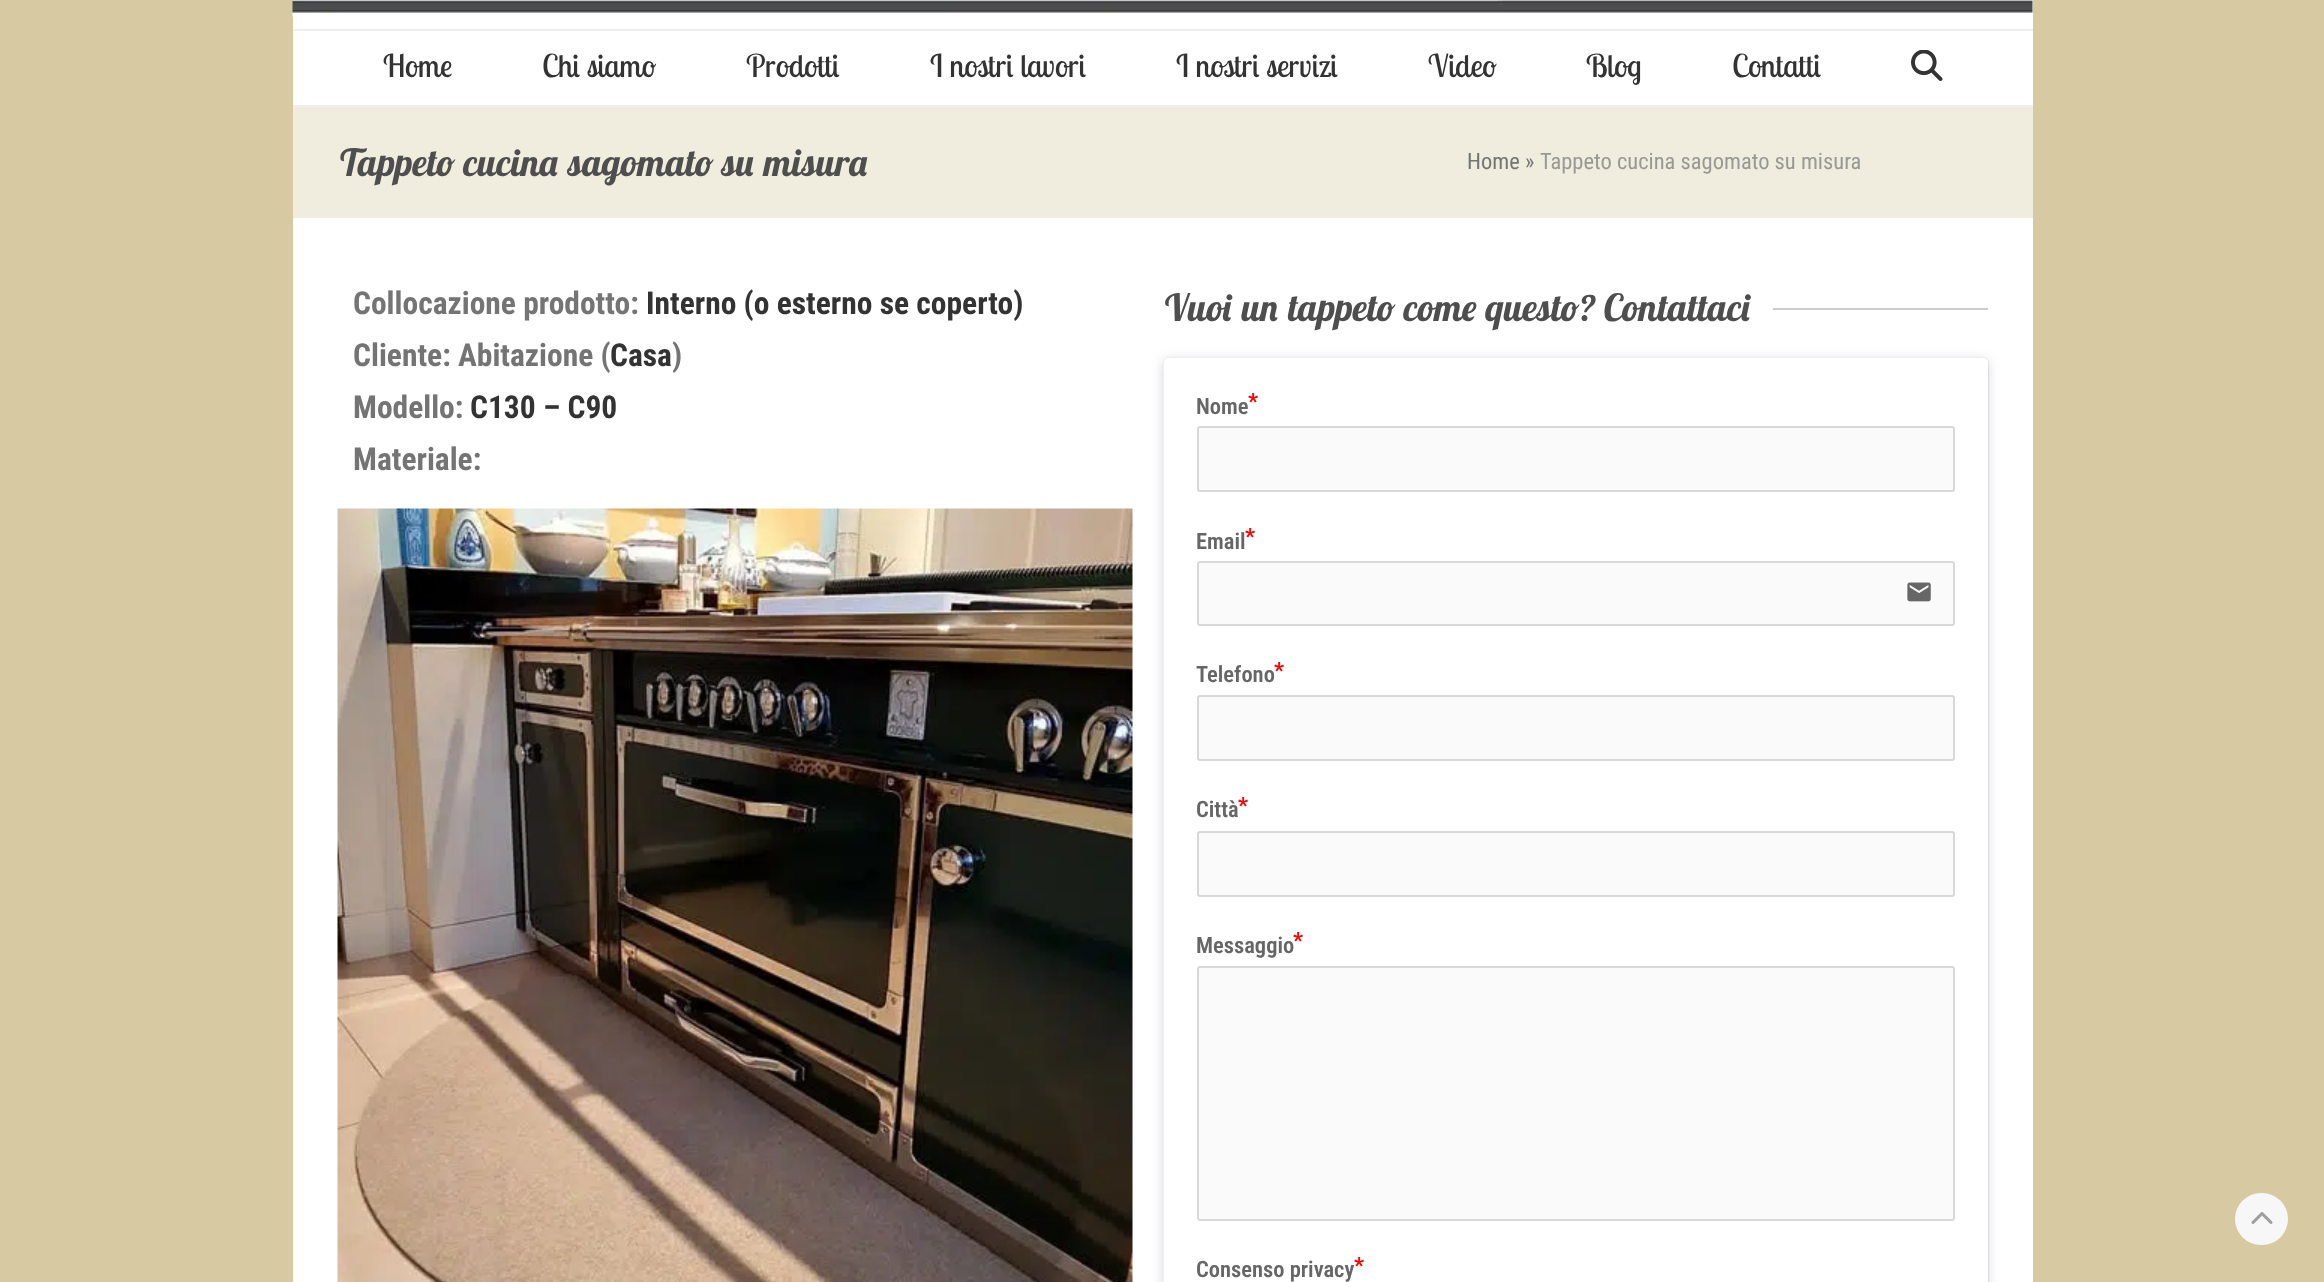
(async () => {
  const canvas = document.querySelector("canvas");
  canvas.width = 2324;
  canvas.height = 1282;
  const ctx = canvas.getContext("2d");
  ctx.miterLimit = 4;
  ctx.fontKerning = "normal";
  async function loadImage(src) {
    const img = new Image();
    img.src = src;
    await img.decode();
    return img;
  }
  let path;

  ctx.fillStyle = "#d7c9a1";
  ctx.fillRect(0, 0, 2324, 1282);
  ctx.fillStyle = "#ffffff";
  ctx.fillRect(293, 0, 1740, 1282);
  ctx.drawImage(await loadImage("img/1.png"), 292, 0, 1741, 17);
  ctx.fillStyle = "#eeeeee";
  ctx.fillRect(293, 29, 1740, 2);
  ctx.fillRect(293, 105, 1740, 2);
  ctx.drawImage(await loadImage("img/2.png"), 1911, 50, 32, 31);
  ctx.fillStyle = "#f0ecde";
  ctx.fillRect(293, 107, 1740, 111);
  ctx.drawImage(await loadImage("img/3.png"), 337, 508, 796, 774);
  ctx.fillStyle = "#cccccc";
  ctx.fillRect(1773, 308, 215, 2);
  ctx.save();
  path = new Path2D("M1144 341H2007V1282H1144ZM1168 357H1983C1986 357 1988 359 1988 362V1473C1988 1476 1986 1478 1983 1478H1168C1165 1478 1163 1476 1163 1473V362C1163 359 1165 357 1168 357Z");
  ctx.clip(path, "evenodd");
  ctx.fillStyle = "rgba(50, 55, 90, 0.2)";
  ctx.filter = "blur(6px)";
  ctx.beginPath();
  ctx.roundRect(1163, 360, 825, 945, 5);
  ctx.fill();
  ctx.filter = "none";
  ctx.restore();
  ctx.beginPath();
  ctx.roundRect(1163.4, 357.4, 825.2, 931.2, 5.6);
  ctx.strokeStyle = "rgba(0, 20, 40, 0.1)";
  ctx.lineWidth = 0.8;
  ctx.stroke();
  ctx.fillStyle = "#fafafa";
  ctx.beginPath();
  ctx.roundRect(1198, 427, 756, 64, 2);
  ctx.fill();
  ctx.strokeStyle = "#d6d8d9";
  ctx.lineWidth = 2;
  ctx.stroke();
  ctx.beginPath();
  ctx.roundRect(1198, 562, 756, 63, 2);
  ctx.fill();
  ctx.stroke();
  ctx.drawImage(await loadImage("img/4.png"), 1907, 582, 24, 20);
  ctx.beginPath();
  ctx.roundRect(1198, 696, 756, 64, 2);
  ctx.fill();
  ctx.stroke();
  ctx.beginPath();
  ctx.roundRect(1198, 832, 756, 64, 2);
  ctx.fill();
  ctx.stroke();
  ctx.beginPath();
  ctx.roundRect(1198, 967, 756, 253, 2);
  ctx.fill();
  ctx.stroke();
  ctx.fillStyle = "#f7f7f7";
  ctx.beginPath();
  ctx.roundRect(2235, 1193, 53, 52, 26);
  ctx.fill();
  ctx.drawImage(await loadImage("img/5.png"), 2251, 1212, 22, 12);
  ctx.font = "31.5px Lobster Two";
  ctx.fillStyle = "#333333";
  for (const [text, x, y] of [
    ["Home", 383, 77],
    ["Chi siamo", 542, 77],
    ["Prodotti", 746, 77],
    ["I nostri lavori", 930, 77],
    ["I nostri servizi", 1176, 77],
    ["Video", 1428, 77],
    ["Blog", 1586, 77],
    ["Contatti", 1732, 77],
  ]) {
    ctx.fillText(text, x, y);
  }
  ctx.font = "italic bold 37.5px Lobster Two";
  ctx.fillStyle = "#4e4e4e";
  ctx.fillText("Tappeto cucina sagomato su misura", 338, 176);
  ctx.font = "22.5px Roboto Condensed";
  ctx.fillStyle = "#747474";
  ctx.fillText("Home »", 1467, 169);
  ctx.fillStyle = "#999894";
  ctx.fillText("Tappeto cucina sagomato su misura", 1540, 169);
  ctx.font = "bold 31.5px Roboto Condensed";
  ctx.fillStyle = "#747474";
  ctx.fillText("Collocazione prodotto:", 353, 314);
  ctx.fillStyle = "#333333";
  ctx.fillText("Interno (o esterno se coperto)", 646, 314);
  ctx.fillStyle = "#747474";
  ctx.fillText("Cliente: Abitazione (", 353, 366);
  ctx.fillStyle = "#333333";
  ctx.fillText("Casa", 610, 366);
  ctx.fillStyle = "#747474";
  ctx.fillText(")", 672, 366);
  ctx.fillText("Modello:", 353, 418);
  ctx.fillStyle = "#333333";
  ctx.fillText("C130 – C90", 470, 418);
  ctx.fillStyle = "#747474";
  ctx.fillText("Materiale:", 353, 470);
  ctx.font = "italic bold 37.5px Lobster Two";
  ctx.fillStyle = "#4e4e4e";
  ctx.fillText("Vuoi un tappeto come questo? Contattaci", 1163, 321);
  ctx.font = "600 22.5px Roboto Condensed";
  ctx.fillStyle = "#666666";
  ctx.fillText("Nome", 1196, 414);
  ctx.fillStyle = "#ff0000";
  ctx.fillText("*", 1248, 409);
  ctx.fillStyle = "#666666";
  ctx.fillText("Email", 1196, 549);
  ctx.fillStyle = "#ff0000";
  ctx.fillText("*", 1245, 544);
  ctx.fillStyle = "#666666";
  ctx.fillText("Telefono", 1196, 682);
  ctx.fillStyle = "#ff0000";
  ctx.fillText("*", 1274, 678);
  ctx.fillStyle = "#666666";
  ctx.fillText("Città", 1196, 817);
  ctx.fillStyle = "#ff0000";
  ctx.fillText("*", 1238, 813);
  ctx.fillStyle = "#666666";
  ctx.fillText("Messaggio", 1196, 953);
  ctx.fillStyle = "#ff0000";
  ctx.fillText("*", 1293, 948);
  ctx.fillStyle = "#666666";
  ctx.fillText("Consenso privacy", 1196, 1277);
  ctx.fillStyle = "#ff0000";
  ctx.fillText("*", 1354, 1273);
})();
